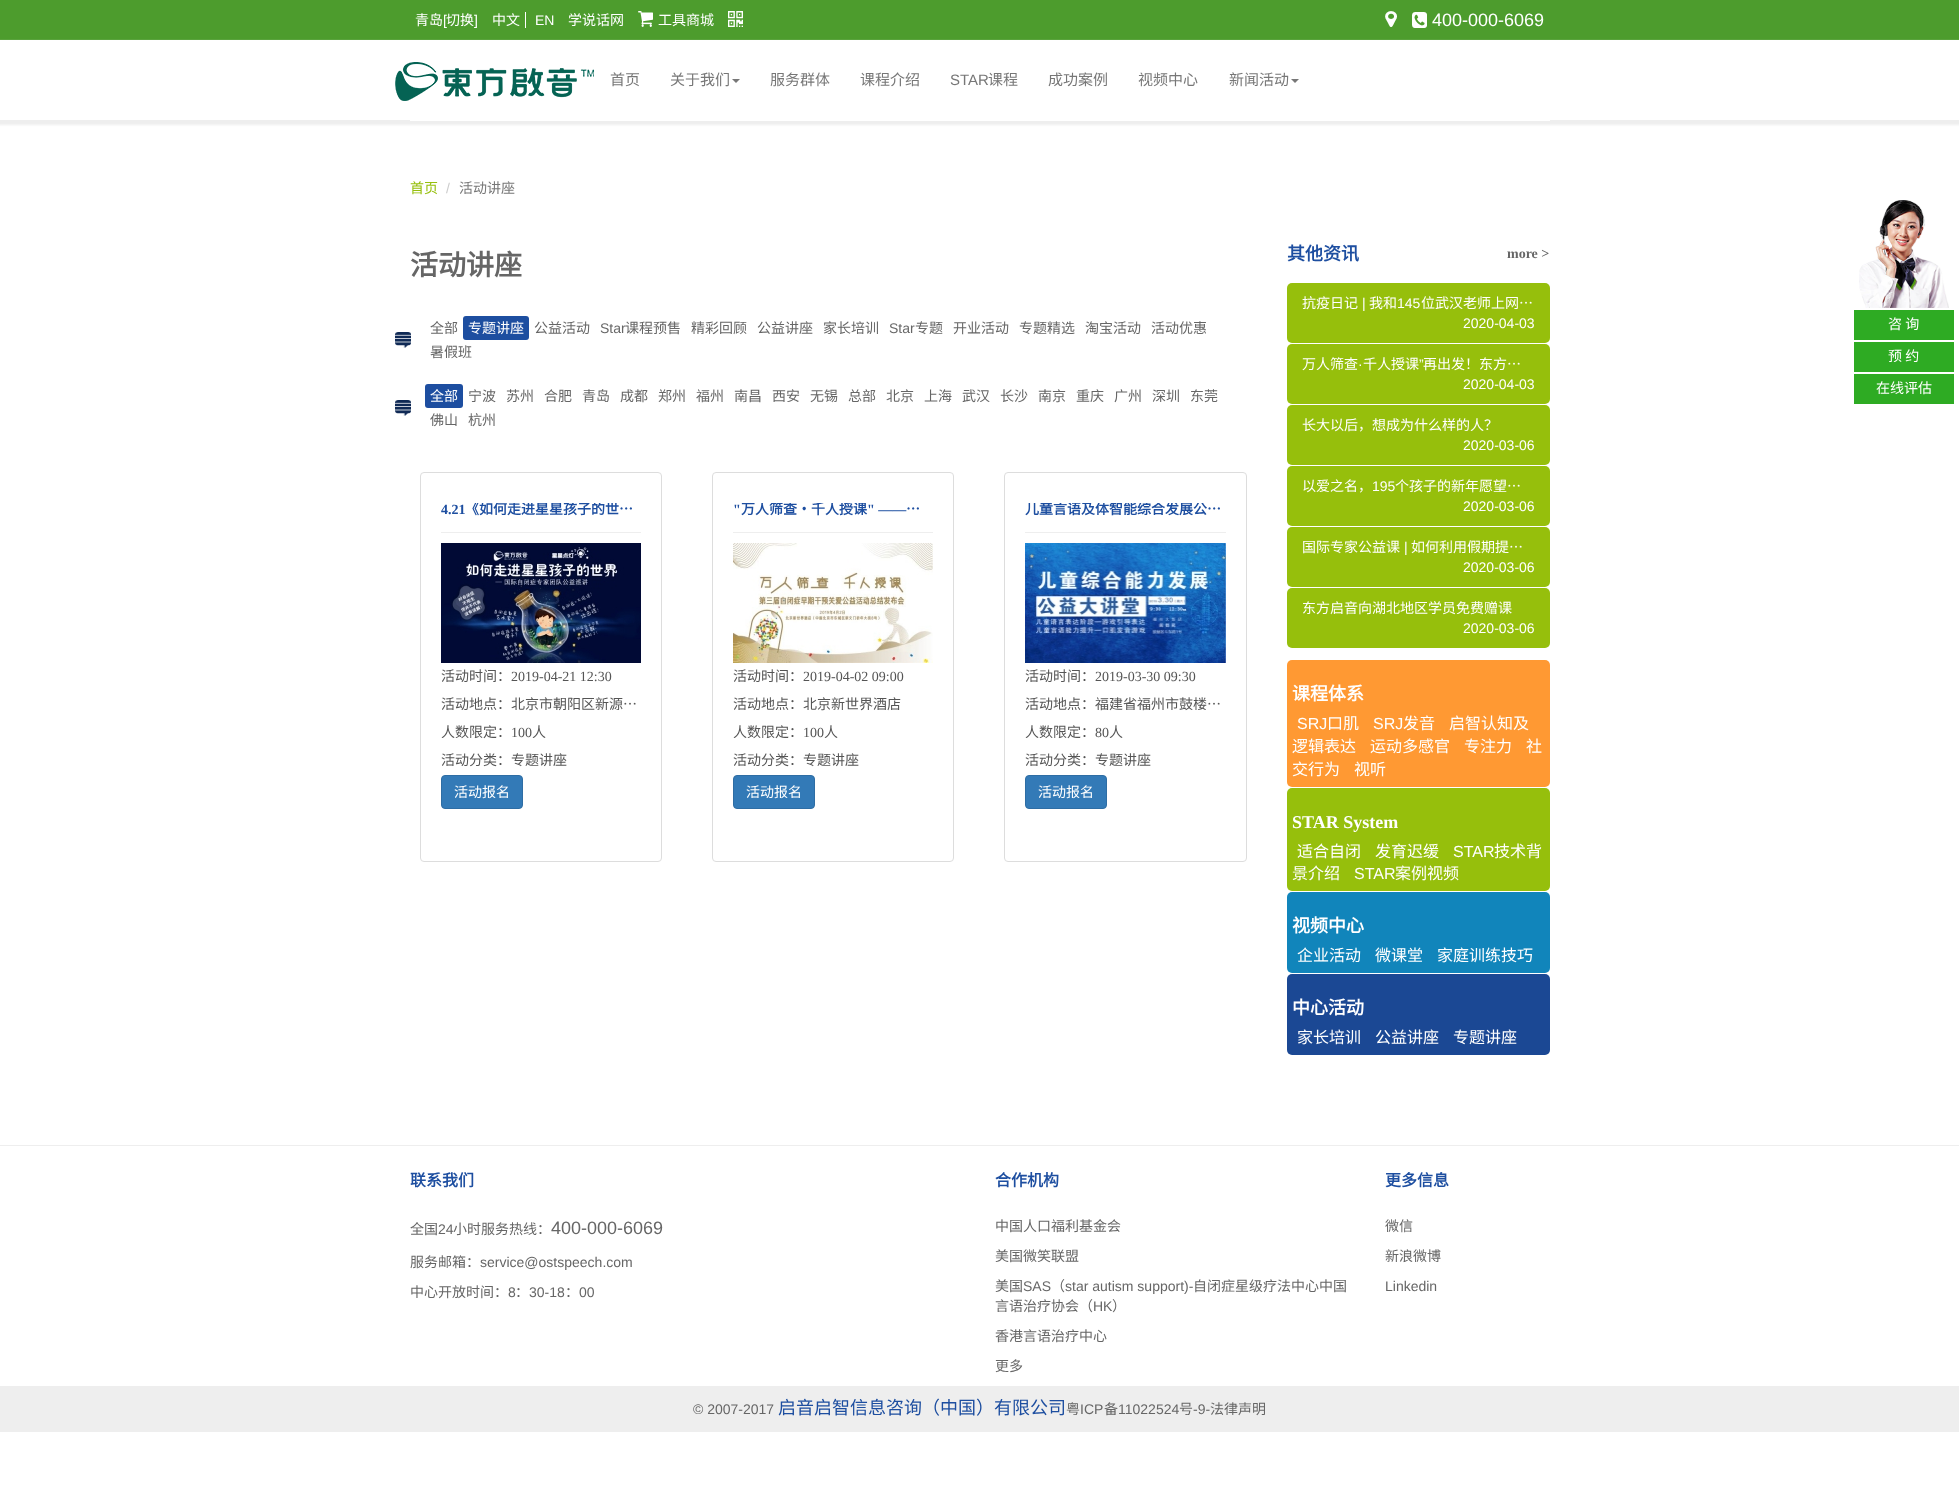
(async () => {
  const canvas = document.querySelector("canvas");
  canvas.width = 1959;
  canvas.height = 1488;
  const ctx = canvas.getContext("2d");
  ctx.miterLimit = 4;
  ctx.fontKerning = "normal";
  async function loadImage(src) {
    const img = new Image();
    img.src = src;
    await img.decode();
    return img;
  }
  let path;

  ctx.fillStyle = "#ffffff";
  ctx.fillRect(0, 0, 1959, 1488);
  ctx.fillStyle = "#4d9c2d";
  ctx.fillRect(0, 0, 1959, 40);
  ctx.fillStyle = "#ffffff";
  ctx.fillRect(525, 12, 1, 16);
  ctx.drawImage(await loadImage("img/1.png"), 638, 11, 15, 16);
  ctx.drawImage(await loadImage("img/2.png"), 728, 11, 15, 16);
  ctx.drawImage(await loadImage("img/3.png"), 1385, 11, 12, 16);
  ctx.drawImage(await loadImage("img/4.png"), 1412, 12, 15, 16);
  ctx.save();
  path = new Path2D("M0 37H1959V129H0ZM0 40H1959V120H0Z");
  ctx.clip(path, "evenodd");
  ctx.fillStyle = "#eeeeee";
  ctx.filter = "blur(1px)";
  ctx.beginPath();
  ctx.rect(-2, 41, 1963, 84);
  ctx.fill();
  ctx.filter = "none";
  ctx.restore();
  ctx.drawImage(await loadImage("img/5.png"), 395, 62, 199, 39);
  ctx.fillRect(410, 120, 1140, 1);
  ctx.fillStyle = "#777777";
  path = new Path2D("M732 79H740L736 83Z");
  ctx.fill(path);
  path = new Path2D("M1291 79H1299L1295 83Z");
  ctx.fill(path);
  ctx.drawImage(await loadImage("img/6.png"), 395, 332, 16, 16);
  ctx.fillStyle = "#1d4ea0";
  ctx.beginPath();
  ctx.roundRect(463, 316, 66, 24, 3);
  ctx.fill();
  ctx.drawImage(await loadImage("img/6.png"), 395, 400, 16, 16);
  ctx.beginPath();
  ctx.roundRect(425, 384, 38, 24, 3);
  ctx.fill();
  ctx.beginPath();
  ctx.roundRect(420.5, 472.5, 241, 389, 3.5);
  ctx.strokeStyle = "#dddddd";
  ctx.stroke();
  ctx.fillStyle = "#eeeeee";
  ctx.fillRect(441, 532, 200, 1);
  ctx.drawImage(await loadImage("img/7.png"), 441, 543, 200, 120);
  ctx.fillStyle = "#337ab7";
  ctx.beginPath();
  ctx.roundRect(441.5, 775.5, 81, 33, 3.5);
  ctx.fill();
  ctx.strokeStyle = "#2e6da4";
  ctx.stroke();
  ctx.beginPath();
  ctx.roundRect(712.5, 472.5, 241, 389, 3.5);
  ctx.strokeStyle = "#dddddd";
  ctx.stroke();
  ctx.fillStyle = "#eeeeee";
  ctx.fillRect(733, 532, 200, 1);
  ctx.drawImage(await loadImage("img/8.png"), 733, 543, 200, 120);
  ctx.fillStyle = "#337ab7";
  ctx.beginPath();
  ctx.roundRect(733.5, 775.5, 81, 33, 3.5);
  ctx.fill();
  ctx.strokeStyle = "#2e6da4";
  ctx.stroke();
  ctx.beginPath();
  ctx.roundRect(1004.5, 472.5, 242, 389, 3.5);
  ctx.strokeStyle = "#dddddd";
  ctx.stroke();
  ctx.fillStyle = "#eeeeee";
  ctx.fillRect(1025, 532, 201, 1);
  ctx.drawImage(await loadImage("img/9.png"), 1025, 543, 201, 120);
  ctx.fillStyle = "#337ab7";
  ctx.beginPath();
  ctx.roundRect(1025.5, 775.5, 81, 33, 3.5);
  ctx.fill();
  ctx.strokeStyle = "#2e6da4";
  ctx.stroke();
  ctx.fillStyle = "#96bf0c";
  ctx.beginPath();
  ctx.roundRect(1287, 283, 263, 60, 5);
  ctx.fill();
  ctx.beginPath();
  ctx.roundRect(1287, 344, 263, 60, 5);
  ctx.fill();
  ctx.beginPath();
  ctx.roundRect(1287, 405, 263, 60, 5);
  ctx.fill();
  ctx.beginPath();
  ctx.roundRect(1287, 466, 263, 60, 5);
  ctx.fill();
  ctx.beginPath();
  ctx.roundRect(1287, 527, 263, 60, 5);
  ctx.fill();
  ctx.beginPath();
  ctx.roundRect(1287, 588, 263, 60, 5);
  ctx.fill();
  ctx.fillStyle = "#ff9933";
  ctx.beginPath();
  ctx.roundRect(1287, 660, 263, 127, 5);
  ctx.fill();
  ctx.fillStyle = "#96bf0c";
  ctx.beginPath();
  ctx.roundRect(1287, 788, 263, 103, 5);
  ctx.fill();
  ctx.fillStyle = "#1185bb";
  ctx.beginPath();
  ctx.roundRect(1287, 892, 263, 81, 5);
  ctx.fill();
  ctx.fillStyle = "#1b4894";
  ctx.beginPath();
  ctx.roundRect(1287, 974, 263, 81, 5);
  ctx.fill();
  ctx.drawImage(await loadImage("img/10.png"), 1859, 200, 90, 108);
  for (const [x, y, w, h, color] of [
    [1854, 310, 100, 30, "#2eab23"],
    [1854, 342, 100, 30, "#2eab23"],
    [1854, 374, 100, 30, "#2eab23"],
    [0, 1145, 1959, 1, "#eeeeee"],
    [0, 1386, 1959, 46, "#eeeeee"],
  ]) {
    ctx.fillStyle = color;
    ctx.fillRect(x, y, w, h);
  }
  ctx.font = "14px Noto Sans CJK SC";
  ctx.fillStyle = "#ffffff";
  ctx.fillText("青岛", 415, 25);
  ctx.font = "14px Liberation Sans";
  ctx.fillText("[", 443, 25);
  ctx.font = "14px Noto Sans CJK SC";
  ctx.fillText("切换", 446, 25);
  ctx.font = "14px Liberation Sans";
  ctx.fillText("]", 474, 25);
  ctx.font = "14px Noto Sans CJK SC";
  ctx.fillText("中文", 492, 25);
  ctx.font = "14px Liberation Sans";
  ctx.fillText("EN", 535, 25);
  ctx.font = "14px Noto Sans CJK SC";
  ctx.fillText("学说话网", 568, 25);
  ctx.fillText("工具商城", 658, 25);
  ctx.font = "18px Liberation Sans";
  ctx.fillText("400-000-6069", 1432, 26);
  ctx.font = "15px Noto Sans CJK SC";
  ctx.fillStyle = "#777777";
  for (const [text, x, y] of [
    ["首页", 610, 85],
    ["关于我们", 670, 85],
    ["服务群体", 770, 85],
    ["课程介绍", 860, 85],
  ]) {
    ctx.fillText(text, x, y);
  }
  ctx.font = "15px Liberation Sans";
  ctx.fillText("STAR", 950, 85);
  ctx.font = "15px Noto Sans CJK SC";
  for (const [text, x, y] of [
    ["课程", 988, 85],
    ["成功案例", 1048, 85],
    ["视频中心", 1138, 85],
    ["新闻活动", 1229, 85],
  ]) {
    ctx.fillText(text, x, y);
  }
  ctx.font = "14px Noto Sans CJK SC";
  ctx.fillStyle = "#96bf0c";
  ctx.fillText("首页", 410, 193);
  ctx.font = "14px Liberation Sans";
  ctx.fillStyle = "#cccccc";
  ctx.fillText("/", 446, 193);
  ctx.font = "14px Noto Sans CJK SC";
  ctx.fillStyle = "#777777";
  ctx.fillText("活动讲座", 459, 193);
  ctx.font = "bold 28px Noto Sans CJK SC";
  ctx.fillStyle = "#666666";
  ctx.fillText("活动讲座", 410, 275);
  ctx.font = "14px Noto Sans CJK SC";
  ctx.fillText("全部", 430, 333);
  ctx.fillStyle = "#ffffff";
  ctx.fillText("专题讲座", 468, 333);
  ctx.fillStyle = "#666666";
  ctx.fillText("公益活动", 534, 333);
  ctx.font = "14px Liberation Sans";
  ctx.fillText("Star", 600, 333);
  ctx.font = "14px Noto Sans CJK SC";
  for (const [text, x, y] of [
    ["课程预售", 625, 333],
    ["精彩回顾", 691, 333],
    ["公益讲座", 757, 333],
    ["家长培训", 823, 333],
  ]) {
    ctx.fillText(text, x, y);
  }
  ctx.font = "14px Liberation Sans";
  ctx.fillText("Star", 889, 333);
  ctx.font = "14px Noto Sans CJK SC";
  for (const [text, x, y] of [
    ["专题", 915, 333],
    ["开业活动", 953, 333],
    ["专题精选", 1019, 333],
    ["淘宝活动", 1085, 333],
    ["活动优惠", 1151, 333],
    ["暑假班", 430, 357],
  ]) {
    ctx.fillText(text, x, y);
  }
  ctx.fillStyle = "#ffffff";
  ctx.fillText("全部", 430, 401);
  ctx.fillStyle = "#666666";
  for (const [text, x, y] of [
    ["宁波", 468, 401],
    ["苏州", 506, 401],
    ["合肥", 544, 401],
    ["青岛", 582, 401],
    ["成都", 620, 401],
    ["郑州", 658, 401],
    ["福州", 696, 401],
    ["南昌", 734, 401],
    ["西安", 772, 401],
    ["无锡", 810, 401],
    ["总部", 848, 401],
    ["北京", 886, 401],
    ["上海", 924, 401],
    ["武汉", 962, 401],
    ["长沙", 1000, 401],
    ["南京", 1038, 401],
    ["重庆", 1076, 401],
    ["广州", 1114, 401],
    ["深圳", 1152, 401],
    ["东莞", 1190, 401],
    ["佛山", 430, 425],
    ["杭州", 468, 425],
  ]) {
    ctx.fillText(text, x, y);
  }
  ctx.font = "bold 14px Liberation Serif";
  ctx.fillStyle = "#1d4ea0";
  ctx.fillText("4.21", 441, 514);
  ctx.save();
  ctx.beginPath();
  ctx.rect(441, 503, 200, 29);
  ctx.clip();
  ctx.font = "bold 14px Noto Sans CJK SC";
  ctx.fillText("《如何走进星星孩子的世…", 465, 514);
  ctx.restore();
  ctx.font = "14px Noto Sans CJK SC";
  ctx.fillStyle = "#555555";
  ctx.fillText("活动时间：", 441, 681);
  ctx.font = "14px Liberation Serif";
  ctx.fillText("2019-04-21 12:30", 511, 681);
  ctx.font = "14px Noto Sans CJK SC";
  ctx.fillText("活动地点：北京市朝阳区新源…", 441, 709);
  ctx.fillText("人数限定：", 441, 737);
  ctx.font = "14px Liberation Serif";
  ctx.fillText("100", 511, 737);
  ctx.font = "14px Noto Sans CJK SC";
  ctx.fillText("人", 532, 737);
  ctx.fillText("活动分类：专题讲座", 441, 765);
  ctx.fillStyle = "#ffffff";
  ctx.fillText("活动报名", 454, 797);
  ctx.font = "bold 14px Liberation Serif";
  ctx.fillStyle = "#1d4ea0";
  ctx.fillText("\"", 733, 514);
  ctx.save();
  ctx.beginPath();
  ctx.rect(733, 503, 200, 29);
  ctx.clip();
  ctx.font = "bold 14px Noto Sans CJK SC";
  ctx.fillText("万人筛查‧千人授课", 741, 514);
  ctx.restore();
  ctx.fillText("\" ——", 867, 514);
  ctx.font = "bold 14px Noto Sans CJK SC";
  ctx.fillText("…", 906, 514);
  ctx.font = "14px Noto Sans CJK SC";
  ctx.fillStyle = "#555555";
  ctx.fillText("活动时间：", 733, 681);
  ctx.font = "14px Liberation Serif";
  ctx.fillText("2019-04-02 09:00", 803, 681);
  ctx.font = "14px Noto Sans CJK SC";
  ctx.fillText("活动地点：北京新世界酒店", 733, 709);
  ctx.fillText("人数限定：", 733, 737);
  ctx.font = "14px Liberation Serif";
  ctx.fillText("100", 803, 737);
  ctx.font = "14px Noto Sans CJK SC";
  ctx.fillText("人", 824, 737);
  ctx.fillText("活动分类：专题讲座", 733, 765);
  ctx.fillStyle = "#ffffff";
  ctx.fillText("活动报名", 746, 797);
  ctx.save();
  ctx.beginPath();
  ctx.rect(1025, 503, 201, 29);
  ctx.clip();
  ctx.font = "bold 14px Noto Sans CJK SC";
  ctx.fillStyle = "#1d4ea0";
  ctx.fillText("儿童言语及体智能综合发展公…", 1025, 514);
  ctx.restore();
  ctx.fillStyle = "#555555";
  ctx.fillText("活动时间：", 1025, 681);
  ctx.font = "14px Liberation Serif";
  ctx.fillText("2019-03-30 09:30", 1095, 681);
  ctx.font = "14px Noto Sans CJK SC";
  ctx.fillText("活动地点：福建省福州市鼓楼…", 1025, 709);
  ctx.fillText("人数限定：", 1025, 737);
  ctx.font = "14px Liberation Serif";
  ctx.fillText("80", 1095, 737);
  ctx.font = "14px Noto Sans CJK SC";
  ctx.fillText("人", 1109, 737);
  ctx.fillText("活动分类：专题讲座", 1025, 765);
  ctx.fillStyle = "#ffffff";
  ctx.fillText("活动报名", 1038, 797);
  ctx.font = "bold 18px Noto Sans CJK SC";
  ctx.fillStyle = "#1d4ea0";
  ctx.fillText("其他资讯", 1287, 260);
  ctx.font = "bold 14px Liberation Serif";
  ctx.fillStyle = "#666666";
  ctx.fillText("more >", 1507, 258);
  ctx.font = "14px Noto Sans CJK SC";
  ctx.fillStyle = "#ffffff";
  ctx.fillText("抗疫日记", 1302, 308);
  ctx.font = "14px Liberation Sans";
  ctx.fillText("|", 1362, 308);
  ctx.font = "14px Noto Sans CJK SC";
  ctx.fillText("我和", 1369, 308);
  ctx.font = "14px Liberation Sans";
  ctx.fillText("145", 1397, 308);
  ctx.font = "14px Noto Sans CJK SC";
  ctx.fillText("位武汉老师上网…", 1421, 308);
  ctx.font = "14px Liberation Sans";
  ctx.fillText("2020-04-03", 1463, 328);
  ctx.font = "14px Noto Sans CJK SC";
  ctx.fillText("万人筛查", 1302, 369);
  ctx.fillText("千人授课", 1363, 369);
  ctx.font = "14px Liberation Sans";
  ctx.fillText("”", 1419, 369);
  ctx.font = "14px Noto Sans CJK SC";
  ctx.fillText("再出发！东方…", 1423, 369);
  ctx.font = "14px Liberation Sans";
  ctx.fillText("·", 1358, 369);
  ctx.fillText("2020-04-03", 1463, 389);
  ctx.font = "14px Noto Sans CJK SC";
  ctx.fillText("长大以后，想成为什么样的人？", 1302, 430);
  ctx.font = "14px Liberation Sans";
  ctx.fillText("2020-03-06", 1463, 450);
  ctx.font = "14px Noto Sans CJK SC";
  ctx.fillText("以爱之名，", 1302, 491);
  ctx.font = "14px Liberation Sans";
  ctx.fillText("195", 1372, 491);
  ctx.font = "14px Noto Sans CJK SC";
  ctx.fillText("个孩子的新年愿望…", 1395, 491);
  ctx.font = "14px Liberation Sans";
  ctx.fillText("2020-03-06", 1463, 511);
  ctx.font = "14px Noto Sans CJK SC";
  ctx.fillText("国际专家公益课", 1302, 552);
  ctx.font = "14px Liberation Sans";
  ctx.fillText("|", 1404, 552);
  ctx.font = "14px Noto Sans CJK SC";
  ctx.fillText("如何利用假期提…", 1411, 552);
  ctx.font = "14px Liberation Sans";
  ctx.fillText("2020-03-06", 1463, 572);
  ctx.font = "14px Noto Sans CJK SC";
  ctx.fillText("东方启音向湖北地区学员免费赠课", 1302, 613);
  ctx.font = "14px Liberation Sans";
  ctx.fillText("2020-03-06", 1463, 633);
  ctx.font = "bold 18px Noto Sans CJK SC";
  ctx.fillText("课程体系", 1292, 700);
  ctx.font = "16px Liberation Sans";
  ctx.fillText("SRJ", 1297, 729);
  ctx.font = "16px Noto Sans CJK SC";
  ctx.fillText("口肌", 1327, 729);
  ctx.font = "16px Liberation Sans";
  ctx.fillText("SRJ", 1373, 729);
  ctx.font = "16px Noto Sans CJK SC";
  for (const [text, x, y] of [
    ["发音", 1403, 729],
    ["启智认知及", 1449, 729],
    ["逻辑表达", 1292, 752],
    ["运动多感官", 1370, 752],
    ["专注力", 1464, 752],
    ["社", 1526, 752],
    ["交行为", 1292, 775],
    ["视听", 1354, 775],
  ]) {
    ctx.fillText(text, x, y);
  }
  ctx.font = "bold 18px Liberation Serif";
  ctx.fillText("STAR System", 1292, 828);
  ctx.font = "16px Noto Sans CJK SC";
  ctx.fillText("适合自闭", 1297, 857);
  ctx.fillText("发育迟缓", 1375, 857);
  ctx.font = "16px Liberation Sans";
  ctx.fillText("STAR", 1453, 857);
  ctx.font = "16px Noto Sans CJK SC";
  ctx.fillText("技术背", 1494, 857);
  ctx.fillText("景介绍", 1292, 879);
  ctx.font = "16px Liberation Sans";
  ctx.fillText("STAR", 1354, 879);
  ctx.font = "16px Noto Sans CJK SC";
  ctx.fillText("案例视频", 1395, 879);
  ctx.font = "bold 18px Noto Sans CJK SC";
  ctx.fillText("视频中心", 1292, 932);
  ctx.font = "16px Noto Sans CJK SC";
  for (const [text, x, y] of [
    ["企业活动", 1297, 961],
    ["微课堂", 1375, 961],
    ["家庭训练技巧", 1437, 961],
  ]) {
    ctx.fillText(text, x, y);
  }
  ctx.font = "bold 18px Noto Sans CJK SC";
  ctx.fillText("中心活动", 1292, 1014);
  ctx.font = "16px Noto Sans CJK SC";
  for (const [text, x, y] of [
    ["家长培训", 1297, 1043],
    ["公益讲座", 1375, 1043],
    ["专题讲座", 1453, 1043],
  ]) {
    ctx.fillText(text, x, y);
  }
  ctx.font = "14px Noto Sans CJK SC";
  for (const [text, x, y] of [
    ["咨 询", 1888, 329],
    ["预 约", 1888, 361],
    ["在线评估", 1876, 393],
  ]) {
    ctx.fillText(text, x, y);
  }
  ctx.font = "bold 16px Noto Sans CJK SC";
  ctx.fillStyle = "#1d4ea0";
  ctx.fillText("联系我们", 410, 1186);
  ctx.font = "14px Noto Sans CJK SC";
  ctx.fillStyle = "#666666";
  ctx.fillText("全国", 410, 1234);
  ctx.font = "14px Liberation Sans";
  ctx.fillText("24", 438, 1234);
  ctx.font = "14px Noto Sans CJK SC";
  ctx.fillText("小时服务热线：", 453, 1234);
  ctx.font = "18px Liberation Sans";
  ctx.fillText("400-000-6069", 551, 1234);
  ctx.font = "14px Noto Sans CJK SC";
  ctx.fillText("服务邮箱：", 410, 1267);
  ctx.font = "14px Liberation Sans";
  ctx.fillText("service@ostspeech.com", 480, 1267);
  ctx.font = "14px Noto Sans CJK SC";
  ctx.fillText("中心开放时间：", 410, 1297);
  ctx.font = "14px Liberation Sans";
  ctx.fillText("8", 508, 1297);
  ctx.font = "14px Noto Sans CJK SC";
  ctx.fillText("：", 515, 1297);
  ctx.font = "14px Liberation Sans";
  ctx.fillText("30-18", 529, 1297);
  ctx.font = "14px Noto Sans CJK SC";
  ctx.fillText("：", 565, 1297);
  ctx.font = "14px Liberation Sans";
  ctx.fillText("00", 579, 1297);
  ctx.font = "bold 16px Noto Sans CJK SC";
  ctx.fillStyle = "#1d4ea0";
  ctx.fillText("合作机构", 995, 1186);
  ctx.font = "14px Noto Sans CJK SC";
  ctx.fillStyle = "#666666";
  for (const [text, x, y] of [
    ["中国人口福利基金会", 995, 1231],
    ["美国微笑联盟", 995, 1261],
    ["美国", 995, 1291],
  ]) {
    ctx.fillText(text, x, y);
  }
  ctx.font = "14px Liberation Sans";
  ctx.fillText("SAS", 1023, 1291);
  ctx.font = "14px Noto Sans CJK SC";
  ctx.fillText("（", 1051, 1291);
  ctx.font = "14px Liberation Sans";
  ctx.fillText("star autism support)-", 1065, 1291);
  ctx.font = "14px Noto Sans CJK SC";
  ctx.fillText("自闭症星级疗法中心中国", 1193, 1291);
  ctx.fillText("言语治疗协会（", 995, 1311);
  ctx.font = "14px Liberation Sans";
  ctx.fillText("HK", 1093, 1311);
  ctx.font = "14px Noto Sans CJK SC";
  for (const [text, x, y] of [
    ["）", 1112, 1311],
    ["香港言语治疗中心", 995, 1341],
    ["更多", 995, 1371],
  ]) {
    ctx.fillText(text, x, y);
  }
  ctx.font = "bold 16px Noto Sans CJK SC";
  ctx.fillStyle = "#1d4ea0";
  ctx.fillText("更多信息", 1385, 1186);
  ctx.font = "14px Noto Sans CJK SC";
  ctx.fillStyle = "#666666";
  ctx.fillText("微信", 1385, 1231);
  ctx.fillText("新浪微博", 1385, 1261);
  ctx.font = "14px Liberation Sans";
  ctx.fillText("Linkedin", 1385, 1291);
  ctx.fillText("© 2007-2017", 693, 1414);
  ctx.font = "18px Noto Sans CJK SC";
  ctx.fillStyle = "#1d4ea0";
  ctx.fillText("启音启智信息咨询（中国）有限公司", 778, 1414);
  ctx.font = "14px Noto Sans CJK SC";
  ctx.fillStyle = "#666666";
  ctx.fillText("粤", 1066, 1414);
  ctx.font = "14px Liberation Sans";
  ctx.fillText("ICP", 1080, 1414);
  ctx.font = "14px Noto Sans CJK SC";
  ctx.fillText("备", 1104, 1414);
  ctx.font = "14px Liberation Sans";
  ctx.fillText("11022524", 1118, 1414);
  ctx.font = "14px Noto Sans CJK SC";
  ctx.fillText("号", 1179, 1414);
  ctx.font = "14px Liberation Sans";
  ctx.fillText("-9-", 1193, 1414);
  ctx.font = "14px Noto Sans CJK SC";
  ctx.fillText("法律声明", 1210, 1414);
})();
